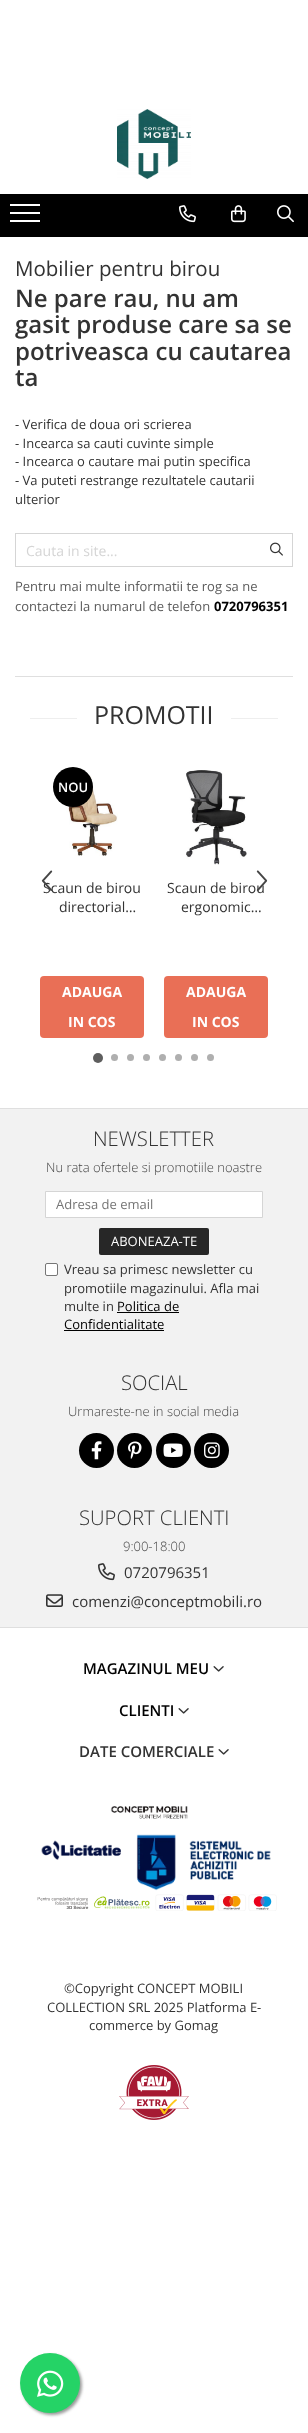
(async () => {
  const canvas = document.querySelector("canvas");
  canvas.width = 308;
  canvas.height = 2433;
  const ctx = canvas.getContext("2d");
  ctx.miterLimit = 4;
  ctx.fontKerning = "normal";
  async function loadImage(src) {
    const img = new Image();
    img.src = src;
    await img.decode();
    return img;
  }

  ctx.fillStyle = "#ffffff";
  ctx.fillRect(0, 0, 308, 2433);
  ctx.drawImage(await loadImage("img/1.png"), 117, 109, 74, 70);
  for (const [x, y, w, h, color] of [
    [0, 194, 308, 43, "#000000"],
    [10, 212, 30, 2, "#ffffff"],
    [10, 204, 30, 2, "#ffffff"],
    [10, 220, 30, 2, "#ffffff"],
  ]) {
    ctx.fillStyle = color;
    ctx.fillRect(x, y, w, h);
  }
  ctx.drawImage(await loadImage("img/2.png"), 179, 205, 17, 18);
  ctx.drawImage(await loadImage("img/3.png"), 231, 205, 15, 18);
  ctx.drawImage(await loadImage("img/4.png"), 277, 205, 17, 18);
  ctx.fillStyle = "#dfdfdf";
  ctx.fillRect(15, 676, 278, 1);
  ctx.strokeStyle = "#d5d5d5";
  ctx.strokeRect(15.5, 533.5, 277, 33);
  ctx.drawImage(await loadImage("img/5.png"), 270, 542, 13, 14);
  ctx.fillStyle = "#eeeeee";
  ctx.fillRect(30, 718, 248, 1);
  ctx.fillStyle = "#ffffff";
  ctx.fillRect(77, 718, 154, 1);
  ctx.drawImage(await loadImage("img/6.png"), 66, 771, 52, 85);
  ctx.fillStyle = "#000000";
  ctx.beginPath();
  ctx.arc(73, 787, 20, 0, Math.PI * 2);
  ctx.fill();
  ctx.fillStyle = "#e96f56";
  ctx.beginPath();
  ctx.roundRect(40, 976, 104, 62, 4);
  ctx.fill();
  ctx.drawImage(await loadImage("img/7.png"), 186, 770, 61, 95);
  ctx.beginPath();
  ctx.roundRect(164, 976, 104, 62, 4);
  ctx.fill();
  ctx.fillStyle = "#5e5e5e";
  ctx.beginPath();
  ctx.arc(98, 1058, 5, 0, Math.PI * 2);
  ctx.fill();
  ctx.fillStyle = "#afafaf";
  ctx.beginPath();
  ctx.arc(114.5, 1057.5, 3.5, 0, Math.PI * 2);
  ctx.fill();
  ctx.beginPath();
  ctx.arc(130.5, 1057.5, 3.5, 0, Math.PI * 2);
  ctx.fill();
  ctx.beginPath();
  ctx.arc(146.5, 1057.5, 3.5, 0, Math.PI * 2);
  ctx.fill();
  ctx.beginPath();
  ctx.arc(162.5, 1057.5, 3.5, 0, Math.PI * 2);
  ctx.fill();
  ctx.beginPath();
  ctx.arc(178.5, 1057.5, 3.5, 0, Math.PI * 2);
  ctx.fill();
  ctx.beginPath();
  ctx.arc(194.5, 1057.5, 3.5, 0, Math.PI * 2);
  ctx.fill();
  ctx.beginPath();
  ctx.arc(210.5, 1057.5, 3.5, 0, Math.PI * 2);
  ctx.fill();
  for (const [x, y, w, h, color] of [
    [0, 1109, 308, 518, "#f2f2f2"],
    [0, 1108, 308, 1, "#dfdfdf"],
    [0, 1627, 308, 1, "#dfdfdf"],
  ]) {
    ctx.fillStyle = color;
    ctx.fillRect(x, y, w, h);
  }
  ctx.fillStyle = "#ffffff";
  ctx.beginPath();
  ctx.rect(45.5, 1191.5, 217, 26);
  ctx.fill();
  ctx.stroke();
  ctx.fillStyle = "#272727";
  ctx.beginPath();
  ctx.roundRect(99, 1228, 110, 27, 2);
  ctx.fill();
  ctx.fillStyle = "#ffffff";
  ctx.beginPath();
  ctx.roundRect(45.5, 1263.5, 12, 12, 1.5);
  ctx.fill();
  ctx.strokeStyle = "#767676";
  ctx.stroke();
  ctx.fillStyle = "#000000";
  ctx.fillRect(117, 1312, 62, 1);
  ctx.fillRect(64, 1330, 100, 1);
  ctx.beginPath();
  ctx.arc(96.5, 1450.5, 17.5, 0, Math.PI * 2);
  ctx.fill();
  ctx.drawImage(await loadImage("img/10.png"), 91, 1441, 11, 19);
  ctx.beginPath();
  ctx.arc(134.5, 1450.5, 17.5, 0, Math.PI * 2);
  ctx.fill();
  ctx.drawImage(await loadImage("img/11.png"), 128, 1441, 14, 18);
  ctx.beginPath();
  ctx.arc(173.5, 1450.5, 17.5, 0, Math.PI * 2);
  ctx.fill();
  ctx.drawImage(await loadImage("img/12.png"), 163, 1443, 20, 14);
  ctx.beginPath();
  ctx.arc(211.5, 1450.5, 17.5, 0, Math.PI * 2);
  ctx.fill();
  ctx.drawImage(await loadImage("img/13.png"), 204, 1442, 16, 17);
  ctx.drawImage(await loadImage("img/14.png"), 98, 1563, 17, 18);
  ctx.drawImage(await loadImage("img/15.png"), 46, 1594, 17, 13);
  ctx.drawImage(await loadImage("img/16.png"), 213, 1666, 11, 6);
  ctx.drawImage(await loadImage("img/16.png"), 178, 1708, 11, 6);
  ctx.drawImage(await loadImage("img/16.png"), 218, 1749, 11, 6);
  ctx.drawImage(await loadImage("img/17.png"), 41, 1806, 230, 85);
  ctx.drawImage(await loadImage("img/18.png"), 37, 1894, 240, 17);
  ctx.drawImage(await loadImage("img/19.png"), 119, 2065, 70, 55);
  ctx.fillStyle = "#999999";
  ctx.filter = "blur(1.5px)";
  ctx.beginPath();
  ctx.roundRect(22, 2355, 60, 60, 30);
  ctx.fill();
  ctx.filter = "none";
  ctx.fillStyle = "#25d366";
  ctx.beginPath();
  ctx.arc(50, 2383, 30, 0, Math.PI * 2);
  ctx.fill();
  ctx.drawImage(await loadImage("img/20.png"), 37, 2370, 27, 27);
  ctx.font = "20.5px Open Sans";
  ctx.fillStyle = "#333333";
  ctx.fillText("Mobilier pentru birou", 15, 276);
  ctx.font = "600 24px Open Sans";
  for (const [text, x, y] of [
    ["Ne pare rau, nu am", 15, 307],
    ["gasit produse care sa se", 15, 333],
    ["potriveasca cu cautarea", 15, 360],
    ["ta", 15, 386],
  ]) {
    ctx.fillText(text, x, y);
  }
  ctx.font = "13px Open Sans";
  for (const [text, x, y] of [
    ["- Verifica de doua ori scrierea", 15, 429],
    ["- Incearca sa cauti cuvinte simple", 15, 448],
    ["- Incearca o cautare mai putin specifica", 15, 466],
    ["- Va puteti restrange rezultatele cautarii", 15, 485],
    ["ulterior", 15, 504],
  ]) {
    ctx.fillText(text, x, y);
  }
  ctx.font = "14px Open Sans";
  ctx.fillStyle = "#d5d5d5";
  ctx.fillText("Cauta in site...", 26, 556);
  ctx.font = "13px Open Sans";
  ctx.fillStyle = "#5b5b5b";
  ctx.fillText("Pentru mai multe informatii te rog sa ne", 15, 591);
  ctx.fillText("contactezi la numarul de telefon", 15, 611);
  ctx.font = "bold 13px Open Sans";
  ctx.fillStyle = "#000000";
  ctx.fillText("0720796351", 214, 611);
  ctx.font = "25px Open Sans";
  ctx.fillStyle = "#333333";
  ctx.fillText("PROMOTII", 94, 724);
  ctx.font = "600 13px Open Sans";
  ctx.fillStyle = "#ffffff";
  ctx.fillText("NOU", 58, 792);
  ctx.font = "14px Open Sans";
  ctx.fillStyle = "#333333";
  ctx.fillText("Scaun de birou", 43, 893);
  ctx.fillText("directorial…", 59, 912);
  ctx.font = "bold 14px Open Sans";
  ctx.fillStyle = "#ffffff";
  ctx.fillText("ADAUGA", 62, 997);
  ctx.fillText("IN COS", 68, 1027);
  ctx.font = "14px Open Sans";
  ctx.fillStyle = "#333333";
  ctx.fillText("Scaun de birou", 167, 893);
  ctx.fillText("ergonomic…", 181, 912);
  ctx.font = "bold 14px Open Sans";
  ctx.fillStyle = "#ffffff";
  ctx.fillText("ADAUGA", 186, 997);
  ctx.fillText("IN COS", 192, 1027);
  ctx.drawImage(await loadImage("img/8.png"), 41, 870, 12, 21);
  ctx.drawImage(await loadImage("img/9.png"), 256, 870, 12, 21);
  ctx.font = "300 20.25px Open Sans";
  ctx.fillStyle = "#333333";
  ctx.fillText("NEWSLETTER", 93, 1146);
  ctx.font = "300 13px Open Sans";
  ctx.fillStyle = "#444444";
  ctx.fillText("Nu rata ofertele si promotiile noastre", 46, 1172);
  ctx.font = "13px Open Sans";
  ctx.fillStyle = "#757575";
  ctx.fillText("Adresa de email", 56, 1209);
  ctx.fillStyle = "#ffffff";
  ctx.fillText("ABONEAZA-TE", 111, 1246);
  ctx.fillStyle = "#333333";
  for (const [text, x, y] of [
    ["Vreau sa primesc newsletter cu", 64, 1274],
    ["promotiile magazinului. Afla mai", 64, 1293],
    ["multe in", 64, 1311],
  ]) {
    ctx.fillText(text, x, y);
  }
  ctx.fillStyle = "#000000";
  ctx.fillText("Politica de", 117, 1311);
  ctx.fillText("Confidentialitate", 64, 1329);
  ctx.font = "300 20.25px Open Sans";
  ctx.fillStyle = "#333333";
  ctx.fillText("SOCIAL", 121, 1390);
  ctx.font = "300 13px Open Sans";
  ctx.fillStyle = "#444444";
  ctx.fillText("Urmareste-ne in social media", 68, 1416);
  ctx.font = "300 20.25px Open Sans";
  ctx.fillStyle = "#333333";
  ctx.fillText("SUPORT CLIENTI", 79, 1525);
  ctx.font = "300 13px Open Sans";
  ctx.fillStyle = "#444444";
  ctx.fillText("9:00-18:00", 123, 1551);
  ctx.font = "15px Open Sans";
  ctx.fillStyle = "#333333";
  ctx.fillText("0720796351", 124, 1578);
  ctx.fillText("comenzi@conceptmobili.ro", 72, 1607);
  ctx.font = "600 15px Open Sans";
  ctx.fillStyle = "#000000";
  ctx.fillText("MAGAZINUL MEU", 83, 1674);
  ctx.fillText("CLIENTI", 119, 1716);
  ctx.fillStyle = "#333333";
  ctx.fillText("DATE COMERCIALE", 79, 1757);
  ctx.font = "13px Open Sans";
  for (const [text, x, y] of [
    ["©Copyright CONCEPT MOBILI", 64, 1993],
    ["COLLECTION SRL 2025 Platforma E-", 47, 2012],
    ["commerce by Gomag", 89, 2030],
  ]) {
    ctx.fillText(text, x, y);
  }
})();
